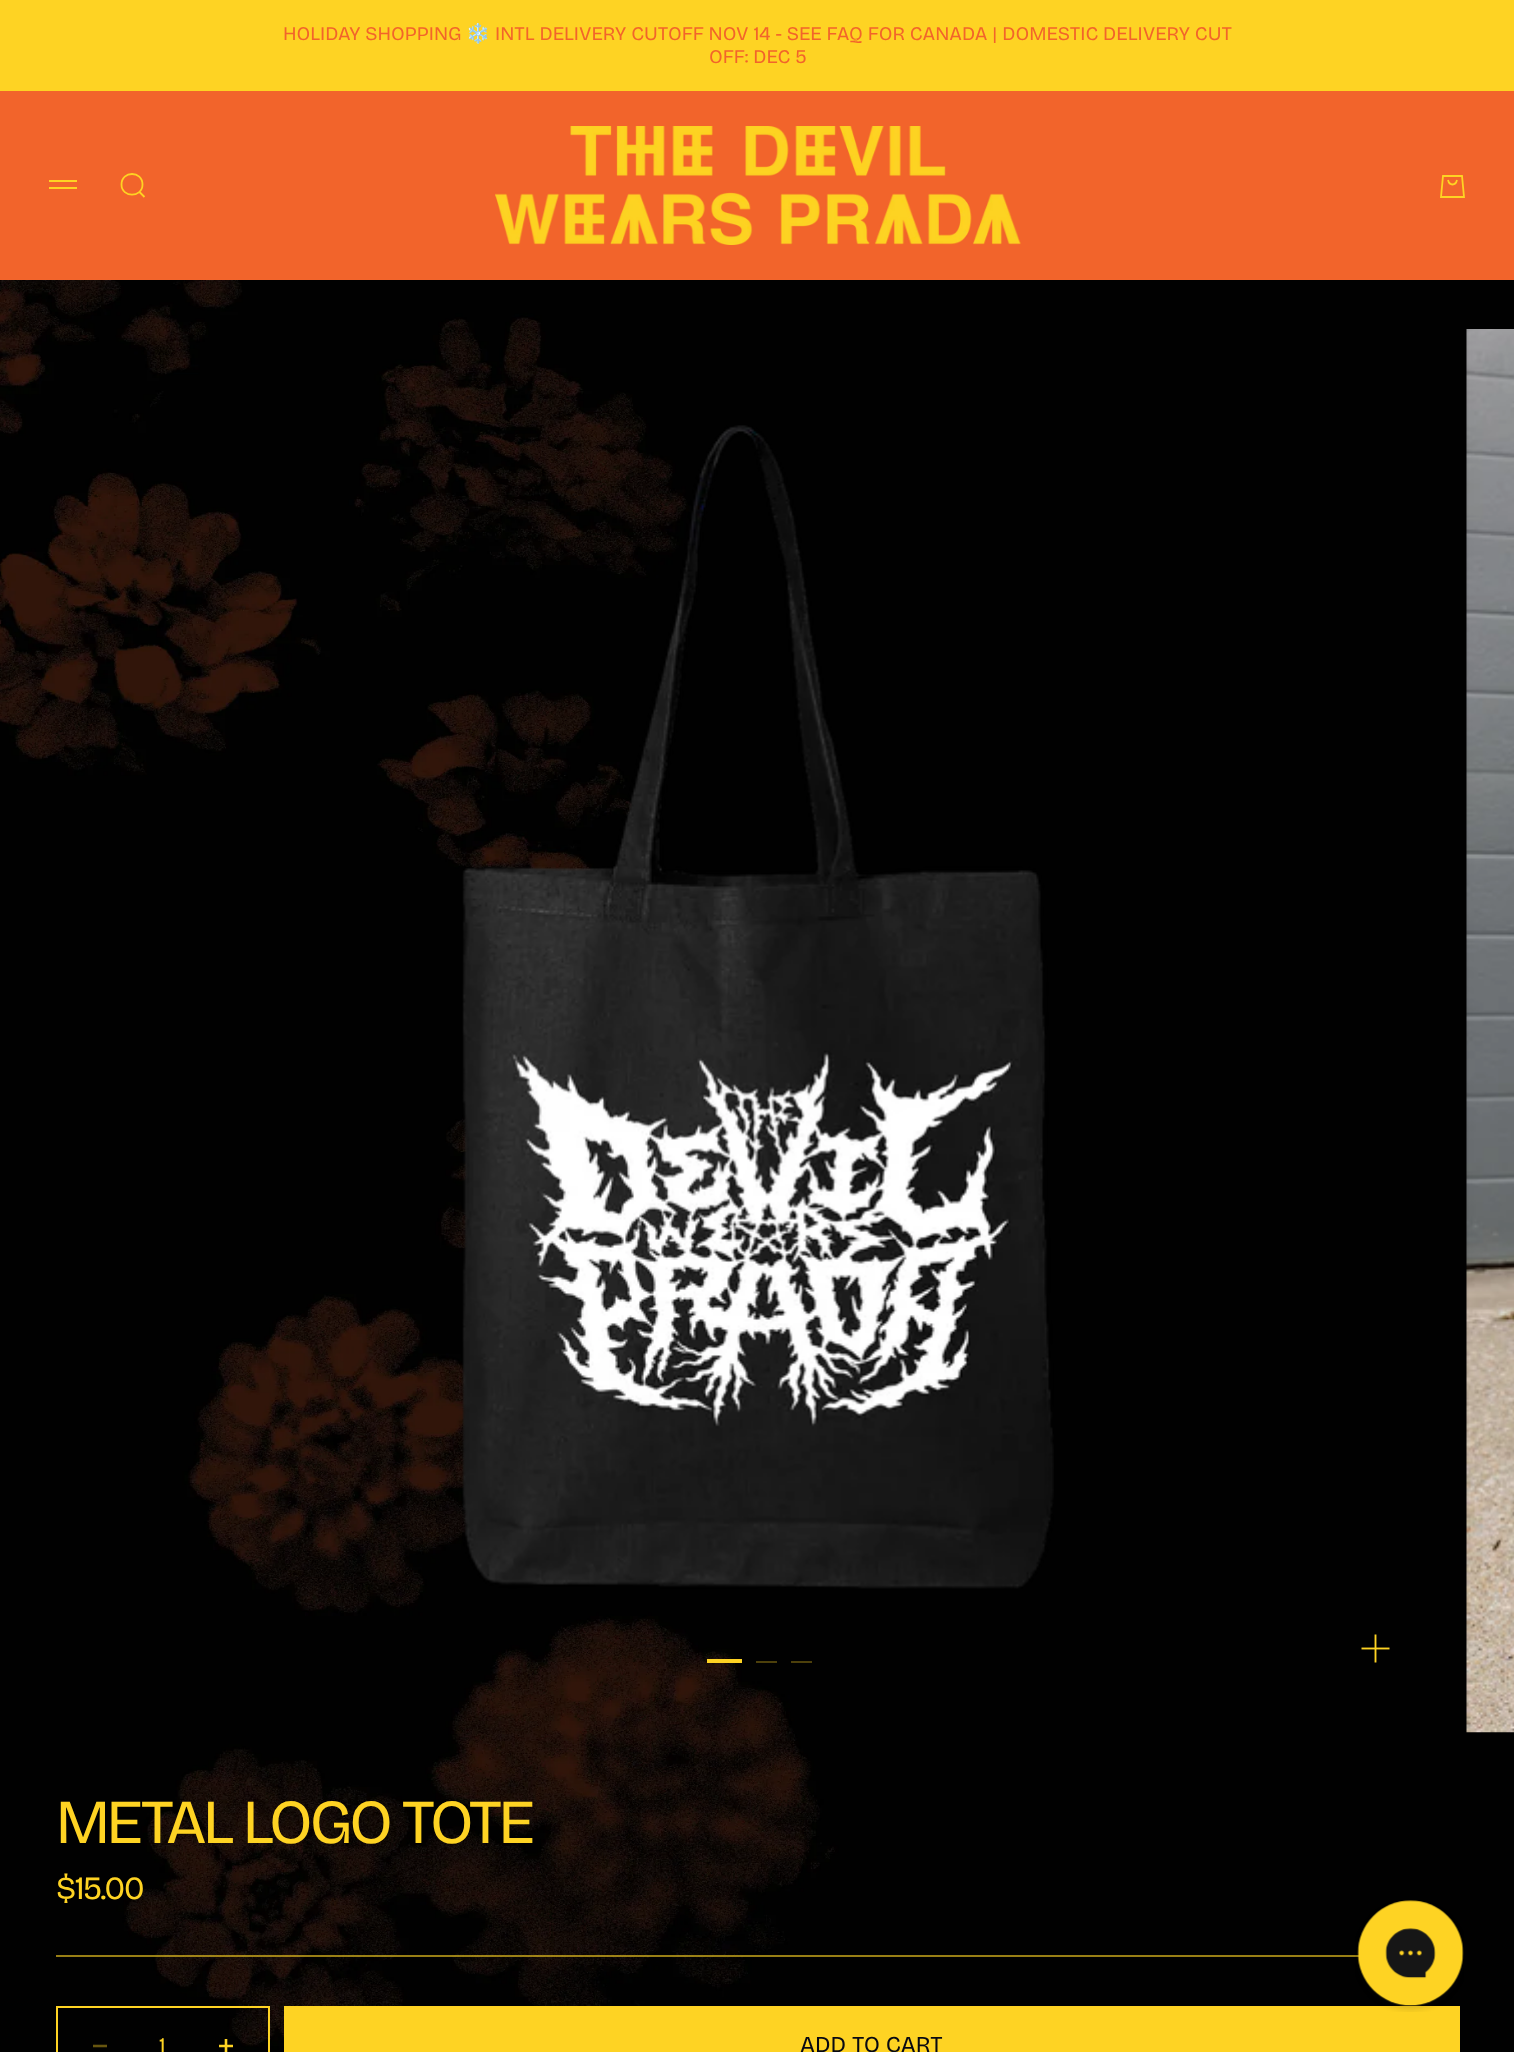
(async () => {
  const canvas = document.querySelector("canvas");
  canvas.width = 1514;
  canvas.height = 2052;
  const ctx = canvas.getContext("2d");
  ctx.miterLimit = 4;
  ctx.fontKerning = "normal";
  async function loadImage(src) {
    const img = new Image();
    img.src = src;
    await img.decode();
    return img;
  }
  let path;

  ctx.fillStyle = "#ffffff";
  ctx.fillRect(0, 0, 1514, 2052);
  for (const [x, y, w, h, color] of [
    [0, 0, 1514, 91, "#fed323"],
    [0, 91, 1514, 189, "#f2642b"],
    [49, 180, 28, 2, "#fed323"],
    [49, 187, 28, 2, "#fed323"],
  ]) {
    ctx.fillStyle = color;
    ctx.fillRect(x, y, w, h);
  }
  path = new Path2D("M121.5 184.5C121.5 198 142.5 198 142.5 184.5C142.5 170.5 121.5 170.5 121.5 184.5ZM139.5 192L144.5 197");
  ctx.strokeStyle = "#fed323";
  ctx.lineWidth = 1.8;
  ctx.stroke(path);
  ctx.drawImage(await loadImage("img/1.png"), 495, 126, 526, 119);
  path = new Path2D("M1441 197L1443 176H1462L1464 197ZM1448 180C1449.5 186 1455.5 186 1457 180");
  ctx.stroke(path);
  ctx.drawImage(await loadImage("img/2.png"), 0, 280, 1514, 1772);
  ctx.drawImage(await loadImage("img/3.png"), 462, 425, 592, 1164);
  ctx.drawImage(await loadImage("img/4.png"), 1361, 1634, 29, 29);
  ctx.drawImage(await loadImage("img/5.png"), 1466, 329, 48, 1404);
  for (const [x, y, w, h, color] of [
    [707, 1659, 35, 4, "#fed323"],
    [756, 1661, 21, 2, "#4d400b"],
    [791, 1661, 21, 2, "#4d400b"],
    [56, 1955, 1303, 2, "rgba(254, 211, 35, 0.6)"],
  ]) {
    ctx.fillStyle = color;
    ctx.fillRect(x, y, w, h);
  }
  ctx.lineWidth = 2;
  ctx.strokeRect(57, 2007, 212, 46);
  path = new Path2D("M93 2046H107");
  ctx.strokeStyle = "#66550f";
  ctx.lineWidth = 2.6;
  ctx.stroke(path);
  path = new Path2D("M219 2046H233M226 2039V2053");
  ctx.strokeStyle = "#fed323";
  ctx.stroke(path);
  ctx.fillStyle = "#fed323";
  ctx.fillRect(284, 2006, 1176, 46);
  ctx.drawImage(await loadImage("img/6.png"), 1355, 1900, 109, 112);
  ctx.font = "19.25px 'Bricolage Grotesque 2'";
  ctx.fillStyle = "#f2642b";
  ctx.fillText("HOLIDAY SHOPPING", 283, 40);
  ctx.font = "19.25px Noto Color Emoji";
  ctx.fillText("❄️", 466, 40);
  ctx.font = "19.25px 'Bricolage Grotesque 2'";
  ctx.fillText("INTL DELIVERY CUTOFF NOV 14 - SEE FAQ FOR CANADA | DOMESTIC DELIVERY CUT", 495, 40);
  ctx.fillText("OFF: DEC 5", 709, 63);
  ctx.letterSpacing = "-3.1px";
  ctx.font = "62.5px Bricolage Grotesque";
  ctx.fillStyle = "#fed323";
  ctx.fillText("METAL LOGO TOTE", 56, 1843);
  ctx.letterSpacing = "-1.5px";
  ctx.font = "32.5px 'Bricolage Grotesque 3'";
  ctx.fillText("$15.00", 56, 1899);
  ctx.letterSpacing = "0px";
  ctx.font = "21px 'Bricolage Grotesque 2'";
  ctx.fillText("1", 159, 2052);
  ctx.font = "22.75px 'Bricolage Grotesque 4'";
  ctx.fillStyle = "#080912";
  ctx.fillText("ADD TO CART", 800, 2052);
})();
